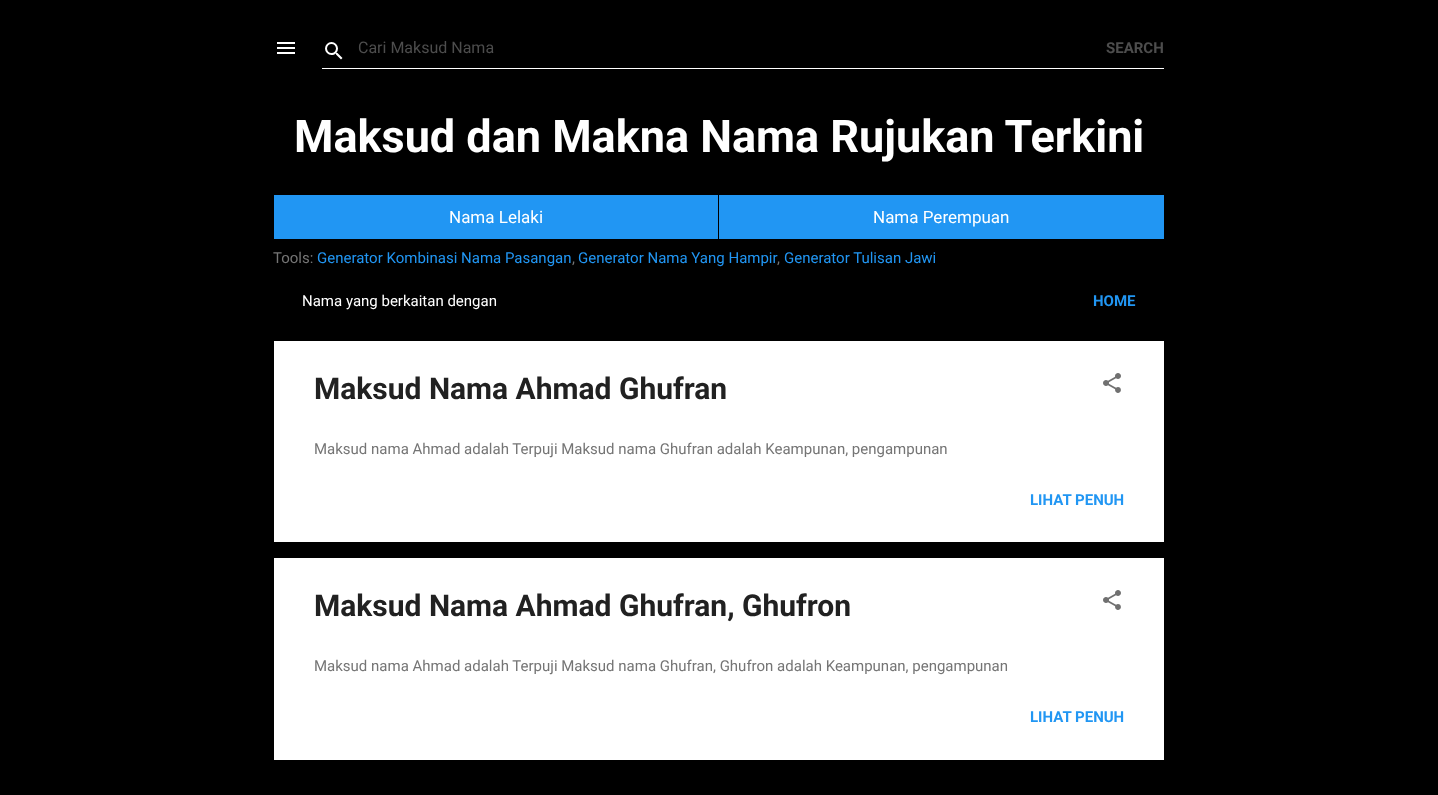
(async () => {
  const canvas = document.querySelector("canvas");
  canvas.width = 1438;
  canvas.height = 795;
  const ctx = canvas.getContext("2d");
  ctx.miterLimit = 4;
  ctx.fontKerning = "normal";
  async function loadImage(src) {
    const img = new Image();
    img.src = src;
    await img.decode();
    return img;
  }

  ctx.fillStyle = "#000000";
  ctx.fillRect(0, 0, 1438, 795);
  ctx.drawImage(await loadImage("img/1.png"), 277, 42, 18, 12);
  ctx.drawImage(await loadImage("img/2.png"), 325, 42, 18, 18);
  for (const [x, y, w, h, color] of [
    [322, 68, 842, 1, "#ffffff"],
    [274, 195, 444, 44, "#2196f3"],
    [719, 195, 445, 44, "#2196f3"],
    [274, 341, 890, 201, "#ffffff"],
  ]) {
    ctx.fillStyle = color;
    ctx.fillRect(x, y, w, h);
  }
  ctx.drawImage(await loadImage("img/3.png"), 1103, 373, 18, 20);
  ctx.fillRect(274, 558, 890, 202);
  ctx.drawImage(await loadImage("img/3.png"), 1103, 590, 18, 20);
  ctx.font = "16px Roboto";
  ctx.fillStyle = "#4d4d4d";
  ctx.fillText("Cari Maksud Nama", 358, 53);
  ctx.font = "bold 15px Roboto";
  ctx.fillText("SEARCH", 1106, 53);
  ctx.font = "bold 45px Roboto";
  ctx.fillStyle = "#ffffff";
  ctx.fillText("Maksud dan Makna Nama Rujukan Terkini", 294, 152);
  ctx.font = "17px Roboto";
  ctx.fillText("Nama Lelaki", 449, 223);
  ctx.fillText("Nama Perempuan", 873, 223);
  ctx.font = "15px Roboto";
  ctx.fillStyle = "#757575";
  ctx.fillText("Tools:", 273, 263);
  ctx.fillStyle = "#2196f3";
  ctx.fillText("Generator Kombinasi Nama Pasangan", 317, 263);
  ctx.fillStyle = "#757575";
  ctx.fillText(",", 572, 263);
  ctx.fillStyle = "#2196f3";
  ctx.fillText("Generator Nama Yang Hampir", 578, 263);
  ctx.fillStyle = "#757575";
  ctx.fillText(",", 777, 263);
  ctx.fillStyle = "#2196f3";
  ctx.fillText("Generator Tulisan Jawi", 784, 263);
  ctx.fillStyle = "#ffffff";
  ctx.fillText("Nama yang berkaitan dengan", 302, 306);
  ctx.font = "bold 15px Roboto";
  ctx.fillStyle = "#2196f3";
  ctx.fillText("HOME", 1093, 306);
  ctx.font = "bold 30px Roboto";
  ctx.fillStyle = "#212121";
  ctx.fillText("Maksud Nama Ahmad Ghufran", 314, 399);
  ctx.font = "15px Roboto";
  ctx.fillStyle = "#757575";
  ctx.fillText("Maksud nama Ahmad adalah Terpuji Maksud nama Ghufran adalah Keampunan, pengampunan", 314, 454);
  ctx.font = "bold 15px Roboto";
  ctx.fillStyle = "#2196f3";
  ctx.fillText("LIHAT PENUH", 1030, 505);
  ctx.font = "bold 30px Roboto";
  ctx.fillStyle = "#212121";
  ctx.fillText("Maksud Nama Ahmad Ghufran, Ghufron", 314, 616);
  ctx.font = "15px Roboto";
  ctx.fillStyle = "#757575";
  ctx.fillText("Maksud nama Ahmad adalah Terpuji Maksud nama Ghufran, Ghufron adalah Keampunan, pengampunan", 314, 671);
  ctx.font = "bold 15px Roboto";
  ctx.fillStyle = "#2196f3";
  ctx.fillText("LIHAT PENUH", 1030, 722);
})();
